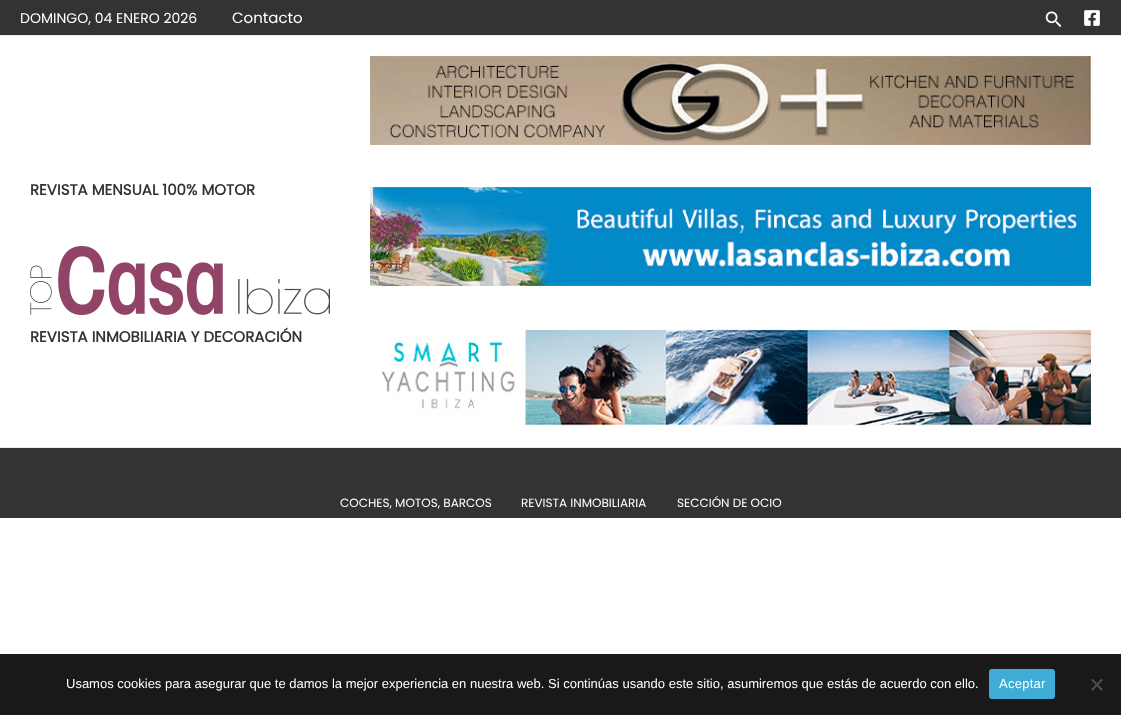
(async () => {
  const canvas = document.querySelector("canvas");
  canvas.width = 1121;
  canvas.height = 715;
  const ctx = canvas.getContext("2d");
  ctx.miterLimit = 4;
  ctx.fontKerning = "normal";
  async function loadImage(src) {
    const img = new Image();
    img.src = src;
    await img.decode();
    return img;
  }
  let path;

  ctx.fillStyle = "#ffffff";
  ctx.fillRect(0, 0, 1121, 715);
  ctx.fillStyle = "#333333";
  ctx.fillRect(0, 0, 1121, 35);
  ctx.fillStyle = "#eaeaea";
  ctx.fillRect(0, 35, 1121, 1);
  ctx.drawImage(await loadImage("img/1.png"), 1045, 11, 16, 17);
  ctx.drawImage(await loadImage("img/2.png"), 1084, 10, 16, 16);
  ctx.fillRect(0, 447, 1121, 1);
  ctx.drawImage(await loadImage("img/3.png"), 30, 246, 300, 69);
  ctx.drawImage(await loadImage("img/4.png"), 370, 56, 721, 89);
  ctx.drawImage(await loadImage("img/5.png"), 370, 187, 721, 99);
  ctx.drawImage(await loadImage("img/6.png"), 381, 328, 710, 99);
  ctx.fillStyle = "#333333";
  ctx.fillRect(0, 448, 1121, 70);
  ctx.fillStyle = "#191919";
  ctx.fillRect(0, 654, 1121, 61);
  ctx.fillStyle = "#3facd6";
  ctx.beginPath();
  ctx.roundRect(989, 669, 66, 30, 3);
  ctx.fill();
  ctx.fillStyle = "#4d4d4d";
  path = new Path2D("M1101.5 678.5L1103 680L1092.5 691L1091 689.5Z");
  ctx.fill(path);
  path = new Path2D("M1091 680L1092.5 678.5L1103 689.5L1101.5 691Z");
  ctx.fill(path);
  ctx.font = "14px Poppins";
  ctx.fillStyle = "#ffffff";
  ctx.fillText("DOMINGO, 04 ENERO 2026", 20, 23);
  ctx.font = "15px Poppins";
  ctx.fillText("Contacto", 232, 23);
  ctx.font = "bold 15px Poppins";
  ctx.fillStyle = "#333333";
  ctx.fillText("REVISTA MENSUAL 100% MOTOR", 30, 195);
  ctx.fillText("REVISTA INMOBILIARIA Y DECORACIÓN", 30, 342);
  ctx.font = "12px Poppins";
  ctx.fillStyle = "#ffffff";
  for (const [text, x, y] of [
    ["COCHES, MOTOS, BARCOS", 340, 507],
    ["REVISTA INMOBILIARIA", 521, 507],
    ["SECCIÓN DE OCIO", 677, 507],
  ]) {
    ctx.fillText(text, x, y);
  }
  ctx.font = "13px Liberation Sans";
  ctx.fillText("Usamos cookies para asegurar que te damos la mejor experiencia en nuestra web. Si continúas usando este sitio, asumiremos que estás de acuerdo con ello.", 66, 688);
  ctx.letterSpacing = "0.25px";
  ctx.fillText("Aceptar", 999, 688);
})();
